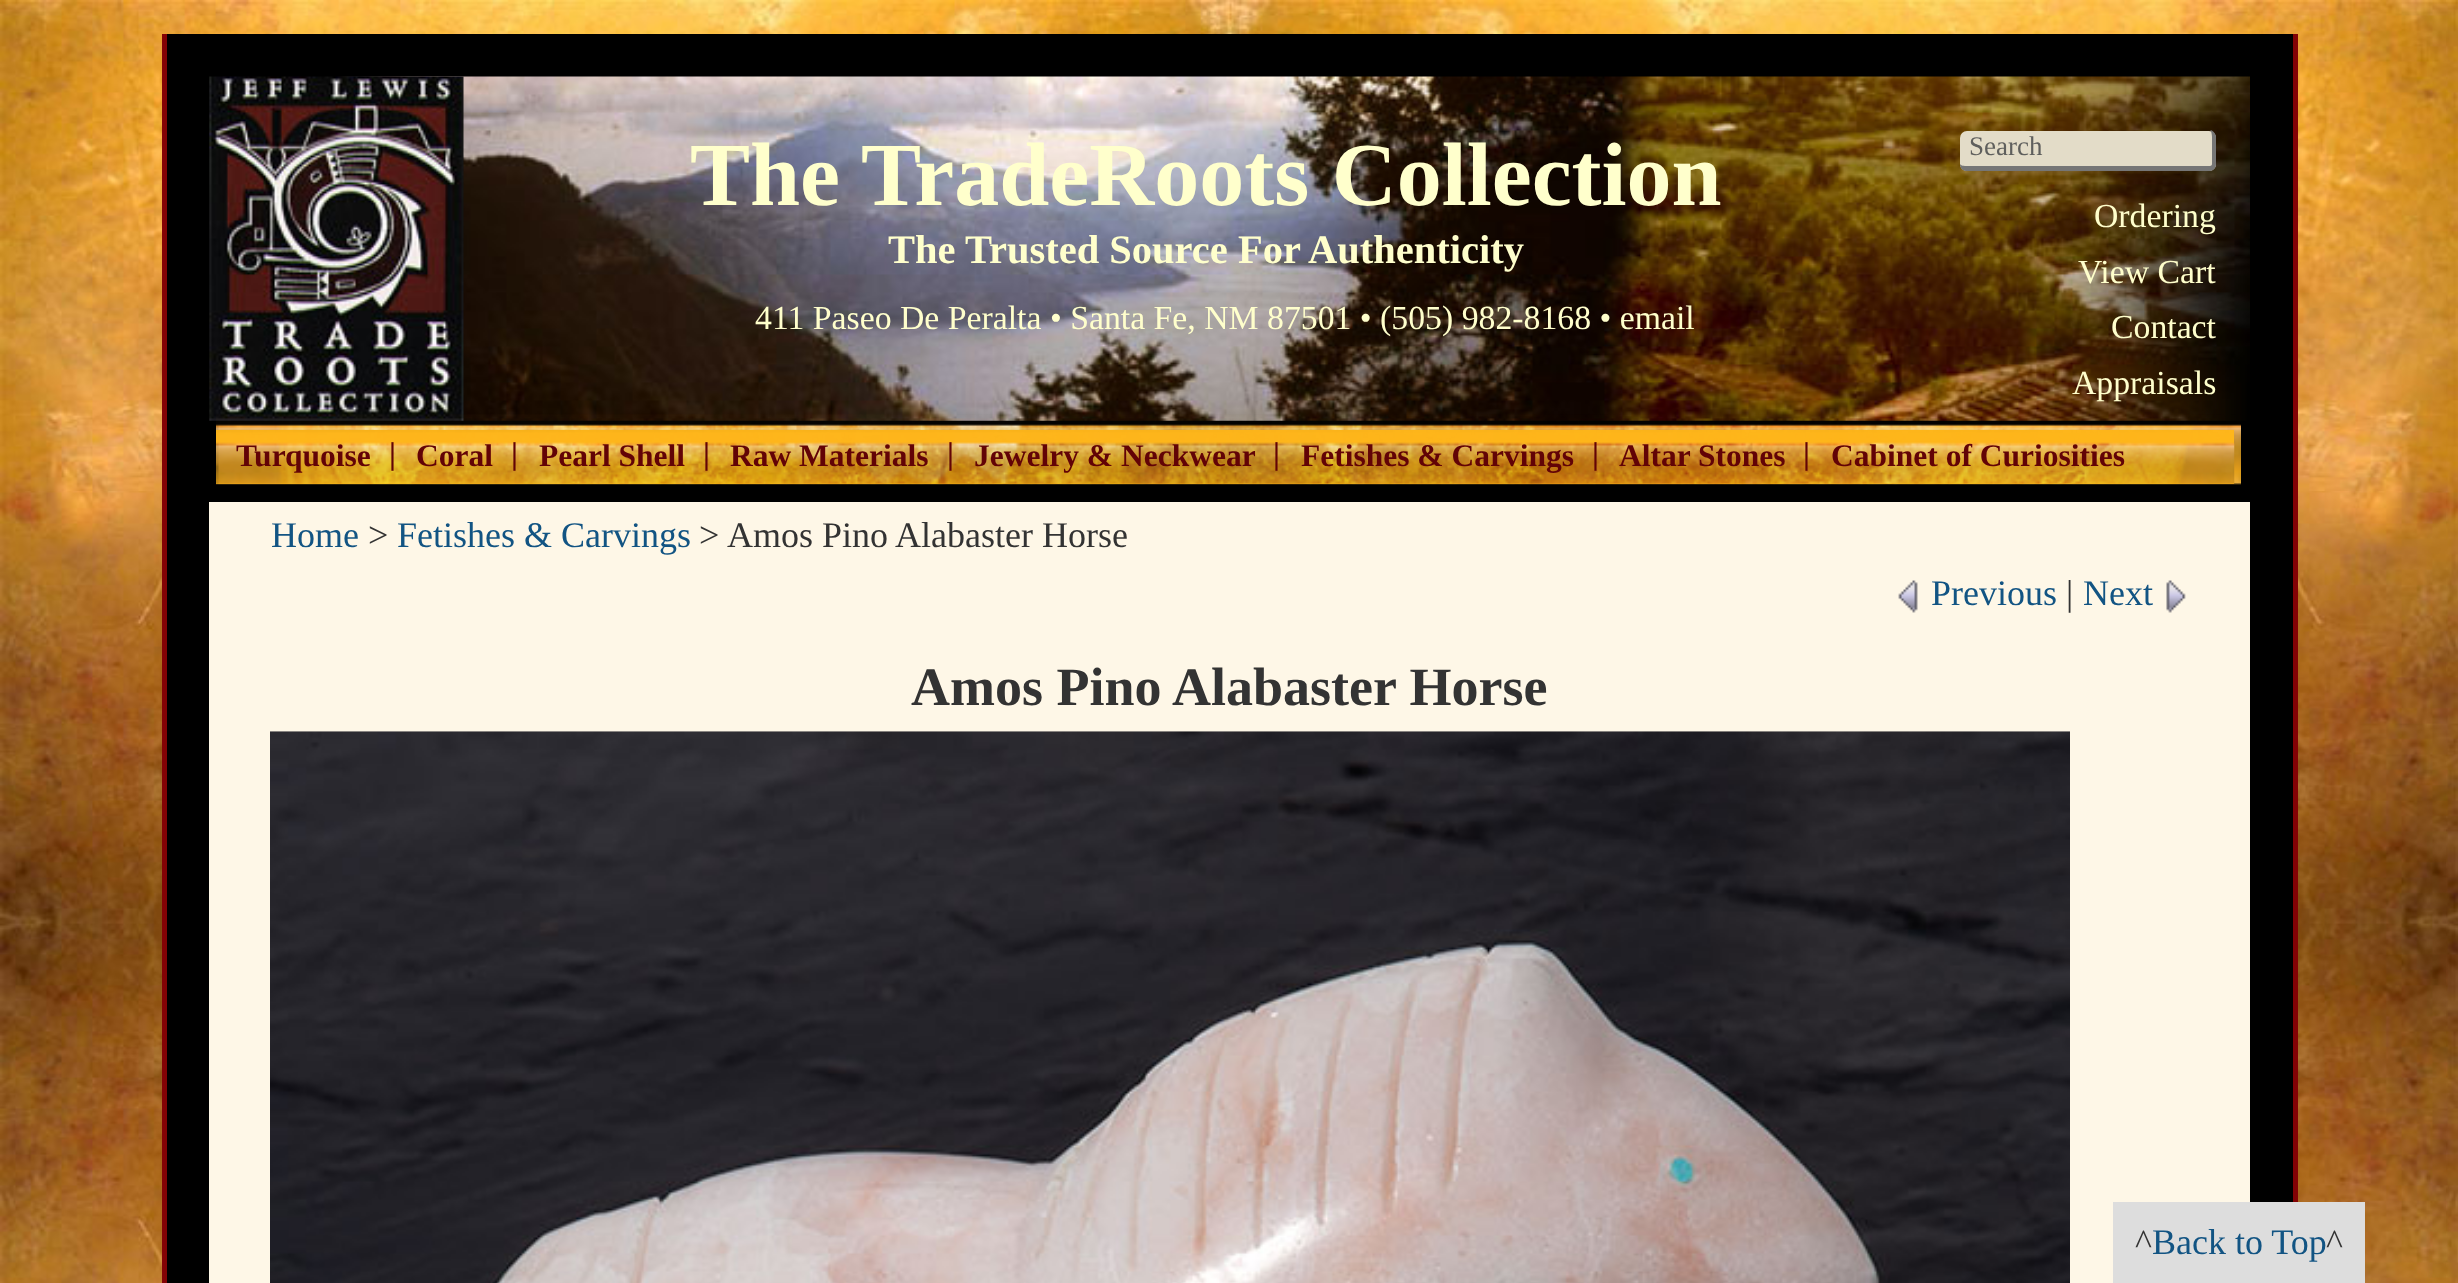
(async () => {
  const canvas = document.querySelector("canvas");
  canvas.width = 2458;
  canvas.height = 1283;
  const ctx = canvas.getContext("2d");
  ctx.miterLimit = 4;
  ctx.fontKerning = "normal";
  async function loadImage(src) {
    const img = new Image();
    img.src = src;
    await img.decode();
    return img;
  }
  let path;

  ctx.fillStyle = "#ffffff";
  ctx.fillRect(0, 0, 2458, 1283);
  ctx.drawImage(await loadImage("img/1.png"), 0, 0, 2458, 1283);
  for (const [x, y, w, h, color] of [
    [167, 34, 2126, 1249, "#000000"],
    [2293, 34, 5, 1168, "#830205"],
    [162, 34, 5, 1249, "#830205"],
  ]) {
    ctx.fillStyle = color;
    ctx.fillRect(x, y, w, h);
  }
  ctx.drawImage(await loadImage("img/2.png"), 327, 76, 1923, 345);
  ctx.drawImage(await loadImage("img/3.png"), 209, 76, 255, 345);
  ctx.fillStyle = "#e3dcc8";
  ctx.beginPath();
  ctx.roundRect(1960, 131, 256, 40, 7);
  ctx.fill();
  ctx.fillStyle = "#767676";
  path = new Path2D("M1966 130H2210C2213 130 2216 134 2216 137V164C2216 168 2213 171 2210 171H1966C1963 171 1960 168 1960 164V137C1960 134 1963 130 1966 130ZM1966 130H2210C2211 130 2212 134 2212 137V164C2212 165 2211 166 2210 166H1966C1963 166 1960 165 1960 164V137C1960 134 1963 130 1966 130Z");
  ctx.fill(path, "evenodd");
  ctx.drawImage(await loadImage("img/4.png"), 216, 414, 2025, 71);
  ctx.fillStyle = "#feb61b";
  ctx.fillRect(216, 430, 2018, 54);
  ctx.drawImage(await loadImage("img/5.png"), 216, 430, 2019, 54);
  ctx.fillStyle = "#fef7e7";
  ctx.fillRect(209, 502, 2041, 781);
  ctx.drawImage(await loadImage("img/6.png"), 1898, 580, 20, 33);
  ctx.drawImage(await loadImage("img/7.png"), 2166, 580, 20, 33);
  ctx.drawImage(await loadImage("img/8.png"), 270, 731, 1800, 552);
  ctx.fillStyle = "#dddddd";
  ctx.fillRect(2113, 1202, 252, 81);
  ctx.font = "bold 90px Liberation Serif";
  ctx.fillStyle = "#ffffcc";
  ctx.fillText("The TradeRoots Collection", 690, 205);
  ctx.font = "bold 40.5px Liberation Serif";
  ctx.fillText("The Trusted Source For Authenticity", 888, 263);
  ctx.font = "27px Liberation Serif";
  ctx.fillStyle = "#5f5f5d";
  ctx.fillText("Search", 1969, 155);
  ctx.font = "33.75px Liberation Serif";
  ctx.fillStyle = "#ffffcc";
  for (const [text, x, y] of [
    ["Ordering", 2094, 227],
    ["View Cart", 2078, 283],
    ["Contact", 2111, 338],
    ["Appraisals", 2072, 394],
    ["411 Paseo De Peralta • Santa Fe, NM 87501 • (505) 982-8168 • email", 755, 329],
  ]) {
    ctx.fillText(text, x, y);
  }
  ctx.font = "bold 31.5px Liberation Serif";
  ctx.fillStyle = "#620306";
  for (const [text, x, y] of [
    ["Turquoise", 236, 466],
    ["|", 389, 464],
    ["Coral", 416, 466],
    ["|", 511, 464],
    ["Pearl Shell", 539, 466],
    ["|", 703, 464],
    ["Raw Materials", 730, 466],
    ["|", 947, 464],
    ["Jewelry & Neckwear", 974, 466],
    ["|", 1273, 464],
    ["Fetishes & Carvings", 1301, 466],
    ["|", 1592, 464],
    ["Altar Stones", 1619, 466],
    ["|", 1803, 464],
    ["Cabinet of Curiosities", 1831, 466],
  ]) {
    ctx.fillText(text, x, y);
  }
  ctx.font = "36px Liberation Serif";
  ctx.fillStyle = "#125483";
  ctx.fillText("Home", 271, 547);
  ctx.fillStyle = "#333333";
  ctx.fillText(">", 368, 547);
  ctx.fillStyle = "#125483";
  ctx.fillText("Fetishes & Carvings", 397, 547);
  ctx.fillStyle = "#333333";
  ctx.fillText(">", 699, 547);
  ctx.fillText("Amos Pino Alabaster Horse", 727, 547);
  ctx.fillStyle = "#125483";
  ctx.fillText("Previous", 1931, 605);
  ctx.fillStyle = "#333333";
  ctx.fillText("|", 2066, 605);
  ctx.fillStyle = "#125483";
  ctx.fillText("Next", 2083, 605);
  ctx.font = "bold 54px Liberation Serif";
  ctx.fillStyle = "#333333";
  ctx.fillText("Amos Pino Alabaster Horse", 911, 705);
  ctx.font = "36px Liberation Serif";
  ctx.fillText("^", 2135, 1254);
  ctx.fillStyle = "#125483";
  ctx.fillText("Back to Top", 2152, 1254);
  ctx.fillStyle = "#333333";
  ctx.fillText("^", 2326, 1254);
})();
